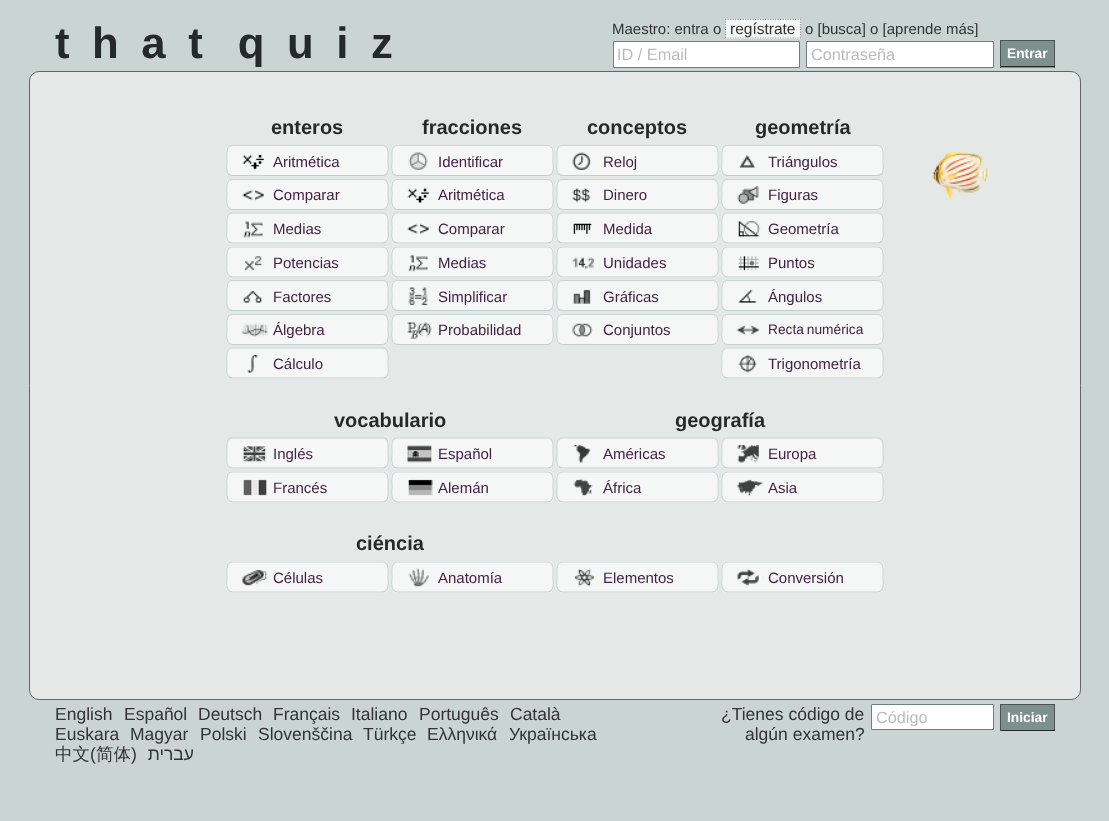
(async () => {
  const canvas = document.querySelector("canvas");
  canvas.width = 1109;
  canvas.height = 821;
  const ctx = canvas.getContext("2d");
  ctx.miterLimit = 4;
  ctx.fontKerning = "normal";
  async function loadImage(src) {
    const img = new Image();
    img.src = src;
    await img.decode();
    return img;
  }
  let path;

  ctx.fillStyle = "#cad5d3";
  ctx.fillRect(0, 0, 1109, 821);
  ctx.fillStyle = "#f5f7f7";
  ctx.fillRect(725, 19, 76, 20);
  path = new Path2D("M725 19.5H801");
  ctx.strokeStyle = "#999999";
  ctx.lineWidth = 1.2;
  ctx.setLineDash([1.25, 1.25]);
  ctx.stroke(path);
  path = new Path2D("M800.5 19V39");
  ctx.stroke(path);
  path = new Path2D("M725 38H801");
  ctx.stroke(path);
  path = new Path2D("M725.5 19V39");
  ctx.stroke(path);
  ctx.fillStyle = "#ffffff";
  ctx.beginPath();
  ctx.rect(613.5, 41.5, 186, 26);
  ctx.fill();
  ctx.strokeStyle = "#6f7f7c";
  ctx.lineWidth = 1;
  ctx.setLineDash([]);
  ctx.stroke();
  ctx.beginPath();
  ctx.rect(806.5, 41.5, 187, 26);
  ctx.fill();
  ctx.stroke();
  for (const [x, y, w, h, color] of [
    [1001, 41, 53, 27, "#7e908c"],
    [1000, 40, 55, 1, "#4a5553"],
    [1054, 40, 1, 28, "#4a5553"],
    [1000, 66, 55, 1, "#252a29"],
    [1000, 40, 1, 28, "#4a5553"],
  ]) {
    ctx.fillStyle = color;
    ctx.fillRect(x, y, w, h);
  }
  ctx.fillStyle = "#e4e9e8";
  ctx.beginPath();
  ctx.roundRect(29.5, 71.5, 1051, 628, 9.5);
  ctx.fill();
  ctx.strokeStyle = "#666666";
  ctx.stroke();
  ctx.fillStyle = "#f5f7f7";
  ctx.beginPath();
  ctx.roundRect(226, 145, 163, 31, 6);
  ctx.fill();
  path = new Path2D("M386.5 174C385.5 175 384 175.5 382.5 175.5H232.5C231 175.5 229.5 175 228.5 174");
  ctx.strokeStyle = "#c3cfcd";
  ctx.lineWidth = 1.2;
  ctx.stroke(path);
  path = new Path2D("M228.5 174C225.5 171 227 164.5 227 160.5C227 156 225 145.5 232.5 145.5H382.5C390 145.5 388 156 388 160.5C388 164.5 389.5 171 386.5 174");
  ctx.strokeStyle = "#cad5d3";
  ctx.stroke(path);
  ctx.drawImage(await loadImage("img/1.png"), 242, 154, 22, 15);
  ctx.beginPath();
  ctx.roundRect(391, 145, 163, 31, 6);
  ctx.fill();
  path = new Path2D("M551.5 174C550.5 175 549 175.5 547.5 175.5H397.5C396 175.5 394.5 175 393.5 174");
  ctx.strokeStyle = "#c3cfcd";
  ctx.stroke(path);
  path = new Path2D("M393.5 174C390.5 171 392 164.5 392 160.5C392 156 390 145.5 397.5 145.5H547.5C555 145.5 553 156 553 160.5C553 164.5 554.5 171 551.5 174");
  ctx.strokeStyle = "#cad5d3";
  ctx.stroke(path);
  ctx.drawImage(await loadImage("img/2.png"), 408, 152, 20, 18);
  ctx.beginPath();
  ctx.roundRect(556, 145, 163, 31, 6);
  ctx.fill();
  path = new Path2D("M716.5 174C715.5 175 714 175.5 712.5 175.5H562.5C561 175.5 559.5 175 558.5 174");
  ctx.strokeStyle = "#c3cfcd";
  ctx.stroke(path);
  path = new Path2D("M558.5 174C555.5 171 557 164.5 557 160.5C557 156 555 145.5 562.5 145.5H712.5C720 145.5 718 156 718 160.5C718 164.5 719.5 171 716.5 174");
  ctx.strokeStyle = "#cad5d3";
  ctx.stroke(path);
  ctx.drawImage(await loadImage("img/3.png"), 572, 152, 19, 18);
  ctx.beginPath();
  ctx.roundRect(721, 145, 163, 31, 6);
  ctx.fill();
  path = new Path2D("M881.5 174C880.5 175 879 175.5 877.5 175.5H727.5C726 175.5 724.5 175 723.5 174");
  ctx.strokeStyle = "#c3cfcd";
  ctx.stroke(path);
  path = new Path2D("M723.5 174C720.5 171 722 164.5 722 160.5C722 156 720 145.5 727.5 145.5H877.5C885 145.5 883 156 883 160.5C883 164.5 884.5 171 881.5 174");
  ctx.strokeStyle = "#cad5d3";
  ctx.stroke(path);
  ctx.drawImage(await loadImage("img/4.png"), 739, 155, 17, 13);
  ctx.beginPath();
  ctx.roundRect(226, 179, 163, 31, 6);
  ctx.fill();
  path = new Path2D("M386.5 207.5C385.5 209 384 209.5 382.5 209.5H232.5C231 209.5 229.5 209 228.5 207.5");
  ctx.strokeStyle = "#c3cfcd";
  ctx.stroke(path);
  path = new Path2D("M228.5 207.5C225.5 204.5 227 198 227 194.5C227 190 225 179.5 232.5 179.5H382.5C390 179.5 388 190 388 194.5C388 198 389.5 204.5 386.5 207.5");
  ctx.strokeStyle = "#cad5d3";
  ctx.stroke(path);
  ctx.drawImage(await loadImage("img/5.png"), 242, 190, 22, 11);
  ctx.beginPath();
  ctx.roundRect(391, 179, 163, 31, 6);
  ctx.fill();
  path = new Path2D("M551.5 207.5C550.5 209 549 209.5 547.5 209.5H397.5C396 209.5 394.5 209 393.5 207.5");
  ctx.strokeStyle = "#c3cfcd";
  ctx.stroke(path);
  path = new Path2D("M393.5 207.5C390.5 204.5 392 198 392 194.5C392 190 390 179.5 397.5 179.5H547.5C555 179.5 553 190 553 194.5C553 198 554.5 204.5 551.5 207.5");
  ctx.strokeStyle = "#cad5d3";
  ctx.stroke(path);
  ctx.drawImage(await loadImage("img/6.png"), 407, 188, 22, 15);
  ctx.beginPath();
  ctx.roundRect(556, 179, 163, 31, 6);
  ctx.fill();
  path = new Path2D("M716.5 207.5C715.5 209 714 209.5 712.5 209.5H562.5C561 209.5 559.5 209 558.5 207.5");
  ctx.strokeStyle = "#c3cfcd";
  ctx.stroke(path);
  path = new Path2D("M558.5 207.5C555.5 204.5 557 198 557 194.5C557 190 555 179.5 562.5 179.5H712.5C720 179.5 718 190 718 194.5C718 198 719.5 204.5 716.5 207.5");
  ctx.strokeStyle = "#cad5d3";
  ctx.stroke(path);
  ctx.drawImage(await loadImage("img/7.png"), 572, 188, 19, 15);
  ctx.beginPath();
  ctx.roundRect(721, 179, 163, 31, 6);
  ctx.fill();
  path = new Path2D("M881.5 207.5C880.5 209 879 209.5 877.5 209.5H727.5C726 209.5 724.5 209 723.5 207.5");
  ctx.strokeStyle = "#c3cfcd";
  ctx.stroke(path);
  path = new Path2D("M723.5 207.5C720.5 204.5 722 198 722 194.5C722 190 720 179.5 727.5 179.5H877.5C885 179.5 883 190 883 194.5C883 198 884.5 204.5 881.5 207.5");
  ctx.strokeStyle = "#cad5d3";
  ctx.stroke(path);
  ctx.drawImage(await loadImage("img/8.png"), 737, 186, 22, 18);
  ctx.beginPath();
  ctx.roundRect(226, 213, 163, 31, 6);
  ctx.fill();
  path = new Path2D("M386.5 241.5C385.5 242.5 384 243 382.5 243H232.5C231 243 229.5 242.5 228.5 241.5");
  ctx.strokeStyle = "#c3cfcd";
  ctx.stroke(path);
  path = new Path2D("M228.5 241.5C225.5 238.5 227 232 227 228C227 223.5 225 213 232.5 213H382.5C390 213 388 223.5 388 228C388 232 389.5 238.5 386.5 241.5");
  ctx.strokeStyle = "#cad5d3";
  ctx.stroke(path);
  ctx.drawImage(await loadImage("img/9.png"), 243, 221, 20, 17);
  ctx.beginPath();
  ctx.roundRect(391, 213, 163, 31, 6);
  ctx.fill();
  path = new Path2D("M551.5 241.5C550.5 242.5 549 243 547.5 243H397.5C396 243 394.5 242.5 393.5 241.5");
  ctx.strokeStyle = "#c3cfcd";
  ctx.stroke(path);
  path = new Path2D("M393.5 241.5C390.5 238.5 392 232 392 228C392 223.5 390 213 397.5 213H547.5C555 213 553 223.5 553 228C553 232 554.5 238.5 551.5 241.5");
  ctx.strokeStyle = "#cad5d3";
  ctx.stroke(path);
  ctx.drawImage(await loadImage("img/10.png"), 407, 223, 22, 11);
  ctx.beginPath();
  ctx.roundRect(556, 213, 163, 31, 6);
  ctx.fill();
  path = new Path2D("M716.5 241.5C715.5 242.5 714 243 712.5 243H562.5C561 243 559.5 242.5 558.5 241.5");
  ctx.strokeStyle = "#c3cfcd";
  ctx.stroke(path);
  path = new Path2D("M558.5 241.5C555.5 238.5 557 232 557 228C557 223.5 555 213 562.5 213H712.5C720 213 718 223.5 718 228C718 232 719.5 238.5 716.5 241.5");
  ctx.strokeStyle = "#cad5d3";
  ctx.stroke(path);
  ctx.drawImage(await loadImage("img/11.png"), 573, 223, 19, 11);
  ctx.beginPath();
  ctx.roundRect(721, 213, 163, 31, 6);
  ctx.fill();
  path = new Path2D("M881.5 241.5C880.5 242.5 879 243 877.5 243H727.5C726 243 724.5 242.5 723.5 241.5");
  ctx.strokeStyle = "#c3cfcd";
  ctx.stroke(path);
  path = new Path2D("M723.5 241.5C720.5 238.5 722 232 722 228C722 223.5 720 213 727.5 213H877.5C885 213 883 223.5 883 228C883 232 884.5 238.5 881.5 241.5");
  ctx.strokeStyle = "#cad5d3";
  ctx.stroke(path);
  ctx.drawImage(await loadImage("img/12.png"), 738, 221, 23, 17);
  ctx.beginPath();
  ctx.roundRect(226, 246, 163, 32, 6);
  ctx.fill();
  path = new Path2D("M386.5 275C385.5 276.5 384 277 382.5 277H232.5C231 277 229.5 276.5 228.5 275");
  ctx.strokeStyle = "#c3cfcd";
  ctx.stroke(path);
  path = new Path2D("M228.5 275C225.5 272 227 265.5 227 262C227 257.5 225 247 232.5 247H382.5C390 247 388 257.5 388 262C388 265.5 389.5 272 386.5 275");
  ctx.strokeStyle = "#cad5d3";
  ctx.stroke(path);
  ctx.drawImage(await loadImage("img/13.png"), 244, 256, 18, 15);
  ctx.beginPath();
  ctx.roundRect(391, 246, 163, 32, 6);
  ctx.fill();
  path = new Path2D("M551.5 275C550.5 276.5 549 277 547.5 277H397.5C396 277 394.5 276.5 393.5 275");
  ctx.strokeStyle = "#c3cfcd";
  ctx.stroke(path);
  path = new Path2D("M393.5 275C390.5 272 392 265.5 392 262C392 257.5 390 247 397.5 247H547.5C555 247 553 257.5 553 262C553 265.5 554.5 272 551.5 275");
  ctx.strokeStyle = "#cad5d3";
  ctx.stroke(path);
  ctx.drawImage(await loadImage("img/14.png"), 408, 254, 20, 18);
  ctx.beginPath();
  ctx.roundRect(556, 246, 163, 32, 6);
  ctx.fill();
  path = new Path2D("M716.5 275C715.5 276.5 714 277 712.5 277H562.5C561 277 559.5 276.5 558.5 275");
  ctx.strokeStyle = "#c3cfcd";
  ctx.stroke(path);
  path = new Path2D("M558.5 275C555.5 272 557 265.5 557 262C557 257.5 555 247 562.5 247H712.5C720 247 718 257.5 718 262C718 265.5 719.5 272 716.5 275");
  ctx.strokeStyle = "#cad5d3";
  ctx.stroke(path);
  ctx.drawImage(await loadImage("img/15.png"), 572, 257, 22, 12);
  ctx.beginPath();
  ctx.roundRect(721, 246, 163, 32, 6);
  ctx.fill();
  path = new Path2D("M881.5 275C880.5 276.5 879 277 877.5 277H727.5C726 277 724.5 276.5 723.5 275");
  ctx.strokeStyle = "#c3cfcd";
  ctx.stroke(path);
  path = new Path2D("M723.5 275C720.5 272 722 265.5 722 262C722 257.5 720 247 727.5 247H877.5C885 247 883 257.5 883 262C883 265.5 884.5 272 881.5 275");
  ctx.strokeStyle = "#cad5d3";
  ctx.stroke(path);
  ctx.drawImage(await loadImage("img/16.png"), 738, 256, 21, 15);
  ctx.beginPath();
  ctx.roundRect(226, 280, 163, 31, 6);
  ctx.fill();
  path = new Path2D("M386.5 309C385.5 310 384 310.5 382.5 310.5H232.5C231 310.5 229.5 310 228.5 309");
  ctx.strokeStyle = "#c3cfcd";
  ctx.stroke(path);
  path = new Path2D("M228.5 309C225.5 306 227 299.5 227 295.5C227 291 225 280.5 232.5 280.5H382.5C390 280.5 388 291 388 295.5C388 299.5 389.5 306 386.5 309");
  ctx.strokeStyle = "#cad5d3";
  ctx.stroke(path);
  ctx.drawImage(await loadImage("img/17.png"), 243, 290, 19, 13);
  ctx.beginPath();
  ctx.roundRect(391, 280, 163, 31, 6);
  ctx.fill();
  path = new Path2D("M551.5 309C550.5 310 549 310.5 547.5 310.5H397.5C396 310.5 394.5 310 393.5 309");
  ctx.strokeStyle = "#c3cfcd";
  ctx.stroke(path);
  path = new Path2D("M393.5 309C390.5 306 392 299.5 392 295.5C392 291 390 280.5 397.5 280.5H547.5C555 280.5 553 291 553 295.5C553 299.5 554.5 306 551.5 309");
  ctx.strokeStyle = "#cad5d3";
  ctx.stroke(path);
  ctx.drawImage(await loadImage("img/18.png"), 408, 287, 20, 18);
  ctx.beginPath();
  ctx.roundRect(556, 280, 163, 31, 6);
  ctx.fill();
  path = new Path2D("M716.5 309C715.5 310 714 310.5 712.5 310.5H562.5C561 310.5 559.5 310 558.5 309");
  ctx.strokeStyle = "#c3cfcd";
  ctx.stroke(path);
  path = new Path2D("M558.5 309C555.5 306 557 299.5 557 295.5C557 291 555 280.5 562.5 280.5H712.5C720 280.5 718 291 718 295.5C718 299.5 719.5 306 716.5 309");
  ctx.strokeStyle = "#cad5d3";
  ctx.stroke(path);
  ctx.drawImage(await loadImage("img/19.png"), 573, 289, 18, 15);
  ctx.beginPath();
  ctx.roundRect(721, 280, 163, 31, 6);
  ctx.fill();
  path = new Path2D("M881.5 309C880.5 310 879 310.5 877.5 310.5H727.5C726 310.5 724.5 310 723.5 309");
  ctx.strokeStyle = "#c3cfcd";
  ctx.stroke(path);
  path = new Path2D("M723.5 309C720.5 306 722 299.5 722 295.5C722 291 720 280.5 727.5 280.5H877.5C885 280.5 883 291 883 295.5C883 299.5 884.5 306 881.5 309");
  ctx.strokeStyle = "#cad5d3";
  ctx.stroke(path);
  ctx.drawImage(await loadImage("img/20.png"), 738, 289, 19, 14);
  ctx.beginPath();
  ctx.roundRect(226, 314, 163, 31, 6);
  ctx.fill();
  path = new Path2D("M386.5 342.5C385.5 344 384 344.5 382.5 344.5H232.5C231 344.5 229.5 344 228.5 342.5");
  ctx.strokeStyle = "#c3cfcd";
  ctx.stroke(path);
  path = new Path2D("M228.5 342.5C225.5 339.5 227 333 227 329.5C227 325 225 314.5 232.5 314.5H382.5C390 314.5 388 325 388 329.5C388 333 389.5 339.5 386.5 342.5");
  ctx.strokeStyle = "#cad5d3";
  ctx.stroke(path);
  ctx.drawImage(await loadImage("img/21.png"), 242, 323, 26, 14);
  ctx.beginPath();
  ctx.roundRect(391, 314, 163, 31, 6);
  ctx.fill();
  path = new Path2D("M551.5 342.5C550.5 344 549 344.5 547.5 344.5H397.5C396 344.5 394.5 344 393.5 342.5");
  ctx.strokeStyle = "#c3cfcd";
  ctx.stroke(path);
  path = new Path2D("M393.5 342.5C390.5 339.5 392 333 392 329.5C392 325 390 314.5 397.5 314.5H547.5C555 314.5 553 325 553 329.5C553 333 554.5 339.5 551.5 342.5");
  ctx.strokeStyle = "#cad5d3";
  ctx.stroke(path);
  ctx.drawImage(await loadImage("img/22.png"), 407, 322, 25, 17);
  ctx.beginPath();
  ctx.roundRect(556, 314, 163, 31, 6);
  ctx.fill();
  path = new Path2D("M716.5 342.5C715.5 344 714 344.5 712.5 344.5H562.5C561 344.5 559.5 344 558.5 342.5");
  ctx.strokeStyle = "#c3cfcd";
  ctx.stroke(path);
  path = new Path2D("M558.5 342.5C555.5 339.5 557 333 557 329.5C557 325 555 314.5 562.5 314.5H712.5C720 314.5 718 325 718 329.5C718 333 719.5 339.5 716.5 342.5");
  ctx.strokeStyle = "#cad5d3";
  ctx.stroke(path);
  ctx.drawImage(await loadImage("img/23.png"), 572, 323, 21, 14);
  ctx.beginPath();
  ctx.roundRect(721, 314, 163, 31, 6);
  ctx.fill();
  path = new Path2D("M881.5 342.5C880.5 344 879 344.5 877.5 344.5H727.5C726 344.5 724.5 344 723.5 342.5");
  ctx.strokeStyle = "#c3cfcd";
  ctx.stroke(path);
  path = new Path2D("M723.5 342.5C720.5 339.5 722 333 722 329.5C722 325 720 314.5 727.5 314.5H877.5C885 314.5 883 325 883 329.5C883 333 884.5 339.5 881.5 342.5");
  ctx.strokeStyle = "#cad5d3";
  ctx.stroke(path);
  ctx.drawImage(await loadImage("img/24.png"), 737, 325, 23, 10);
  ctx.beginPath();
  ctx.roundRect(226, 348, 163, 31, 6);
  ctx.fill();
  path = new Path2D("M386.5 376.5C385.5 377.5 384 378 382.5 378H232.5C231 378 229.5 377.5 228.5 376.5");
  ctx.strokeStyle = "#c3cfcd";
  ctx.stroke(path);
  path = new Path2D("M228.5 376.5C225.5 373.5 227 367 227 363C227 358.5 225 348 232.5 348H382.5C390 348 388 358.5 388 363C388 367 389.5 373.5 386.5 376.5");
  ctx.strokeStyle = "#cad5d3";
  ctx.stroke(path);
  ctx.drawImage(await loadImage("img/25.png"), 247, 355, 11, 18);
  ctx.beginPath();
  ctx.roundRect(721, 348, 163, 31, 6);
  ctx.fill();
  path = new Path2D("M881.5 376.5C880.5 377.5 879 378 877.5 378H727.5C726 378 724.5 377.5 723.5 376.5");
  ctx.strokeStyle = "#c3cfcd";
  ctx.stroke(path);
  path = new Path2D("M723.5 376.5C720.5 373.5 722 367 722 363C722 358.5 720 348 727.5 348H877.5C885 348 883 358.5 883 363C883 367 884.5 373.5 881.5 376.5");
  ctx.strokeStyle = "#cad5d3";
  ctx.stroke(path);
  ctx.drawImage(await loadImage("img/26.png"), 738, 355, 19, 18);
  ctx.beginPath();
  ctx.roundRect(226, 438, 163, 31, 6);
  ctx.fill();
  path = new Path2D("M386.5 466.5C385.5 467.5 384 468 382.5 468H232.5C231 468 229.5 467.5 228.5 466.5");
  ctx.strokeStyle = "#c3cfcd";
  ctx.stroke(path);
  path = new Path2D("M228.5 466.5C225.5 463.5 227 457 227 453C227 448.5 225 438 232.5 438H382.5C390 438 388 448.5 388 453C388 457 389.5 463.5 386.5 466.5");
  ctx.strokeStyle = "#cad5d3";
  ctx.stroke(path);
  ctx.drawImage(await loadImage("img/27.png"), 242, 446, 25, 16);
  ctx.beginPath();
  ctx.roundRect(391, 438, 163, 31, 6);
  ctx.fill();
  path = new Path2D("M551.5 466.5C550.5 467.5 549 468 547.5 468H397.5C396 468 394.5 467.5 393.5 466.5");
  ctx.strokeStyle = "#c3cfcd";
  ctx.stroke(path);
  path = new Path2D("M393.5 466.5C390.5 463.5 392 457 392 453C392 448.5 390 438 397.5 438H547.5C555 438 553 448.5 553 453C553 457 554.5 463.5 551.5 466.5");
  ctx.strokeStyle = "#cad5d3";
  ctx.stroke(path);
  ctx.drawImage(await loadImage("img/28.png"), 407, 445, 27, 18);
  ctx.beginPath();
  ctx.roundRect(556, 438, 163, 31, 6);
  ctx.fill();
  path = new Path2D("M716.5 466.5C715.5 467.5 714 468 712.5 468H562.5C561 468 559.5 467.5 558.5 466.5");
  ctx.strokeStyle = "#c3cfcd";
  ctx.stroke(path);
  path = new Path2D("M558.5 466.5C555.5 463.5 557 457 557 453C557 448.5 555 438 562.5 438H712.5C720 438 718 448.5 718 453C718 457 719.5 463.5 716.5 466.5");
  ctx.strokeStyle = "#cad5d3";
  ctx.stroke(path);
  ctx.drawImage(await loadImage("img/29.png"), 572, 445, 19, 18);
  ctx.beginPath();
  ctx.roundRect(721, 438, 163, 31, 6);
  ctx.fill();
  path = new Path2D("M881.5 466.5C880.5 467.5 879 468 877.5 468H727.5C726 468 724.5 467.5 723.5 466.5");
  ctx.strokeStyle = "#c3cfcd";
  ctx.stroke(path);
  path = new Path2D("M723.5 466.5C720.5 463.5 722 457 722 453C722 448.5 720 438 727.5 438H877.5C885 438 883 448.5 883 453C883 457 884.5 463.5 881.5 466.5");
  ctx.strokeStyle = "#cad5d3";
  ctx.stroke(path);
  ctx.drawImage(await loadImage("img/30.png"), 737, 445, 22, 18);
  ctx.beginPath();
  ctx.roundRect(226, 471, 163, 32, 6);
  ctx.fill();
  path = new Path2D("M386.5 500C385.5 501.5 384 502 382.5 502H232.5C231 502 229.5 501.5 228.5 500");
  ctx.strokeStyle = "#c3cfcd";
  ctx.stroke(path);
  path = new Path2D("M228.5 500C225.5 497 227 490.5 227 487C227 482.5 225 472 232.5 472H382.5C390 472 388 482.5 388 487C388 490.5 389.5 497 386.5 500");
  ctx.strokeStyle = "#cad5d3";
  ctx.stroke(path);
  ctx.drawImage(await loadImage("img/31.png"), 243, 479, 24, 17);
  ctx.beginPath();
  ctx.roundRect(391, 471, 163, 32, 6);
  ctx.fill();
  path = new Path2D("M551.5 500C550.5 501.5 549 502 547.5 502H397.5C396 502 394.5 501.5 393.5 500");
  ctx.strokeStyle = "#c3cfcd";
  ctx.stroke(path);
  path = new Path2D("M393.5 500C390.5 497 392 490.5 392 487C392 482.5 390 472 397.5 472H547.5C555 472 553 482.5 553 487C553 490.5 554.5 497 551.5 500");
  ctx.strokeStyle = "#cad5d3";
  ctx.stroke(path);
  ctx.drawImage(await loadImage("img/32.png"), 408, 479, 25, 17);
  ctx.beginPath();
  ctx.roundRect(556, 471, 163, 32, 6);
  ctx.fill();
  path = new Path2D("M716.5 500C715.5 501.5 714 502 712.5 502H562.5C561 502 559.5 501.5 558.5 500");
  ctx.strokeStyle = "#c3cfcd";
  ctx.stroke(path);
  path = new Path2D("M558.5 500C555.5 497 557 490.5 557 487C557 482.5 555 472 562.5 472H712.5C720 472 718 482.5 718 487C718 490.5 719.5 497 716.5 500");
  ctx.strokeStyle = "#cad5d3";
  ctx.stroke(path);
  ctx.drawImage(await loadImage("img/33.png"), 573, 478, 20, 19);
  ctx.beginPath();
  ctx.roundRect(721, 471, 163, 32, 6);
  ctx.fill();
  path = new Path2D("M881.5 500C880.5 501.5 879 502 877.5 502H727.5C726 502 724.5 501.5 723.5 500");
  ctx.strokeStyle = "#c3cfcd";
  ctx.stroke(path);
  path = new Path2D("M723.5 500C720.5 497 722 490.5 722 487C722 482.5 720 472 727.5 472H877.5C885 472 883 482.5 883 487C883 490.5 884.5 497 881.5 500");
  ctx.strokeStyle = "#cad5d3";
  ctx.stroke(path);
  ctx.drawImage(await loadImage("img/34.png"), 737, 479, 26, 18);
  ctx.beginPath();
  ctx.roundRect(226, 561, 163, 32, 6);
  ctx.fill();
  path = new Path2D("M386.5 590C385.5 591.5 384 592 382.5 592H232.5C231 592 229.5 591.5 228.5 590");
  ctx.strokeStyle = "#c3cfcd";
  ctx.stroke(path);
  path = new Path2D("M228.5 590C225.5 587 227 580.5 227 577C227 572.5 225 562 232.5 562H382.5C390 562 388 572.5 388 577C388 580.5 389.5 587 386.5 590");
  ctx.strokeStyle = "#cad5d3";
  ctx.stroke(path);
  ctx.drawImage(await loadImage("img/35.png"), 242, 569, 25, 17);
  ctx.beginPath();
  ctx.roundRect(391, 561, 163, 32, 6);
  ctx.fill();
  path = new Path2D("M551.5 590C550.5 591.5 549 592 547.5 592H397.5C396 592 394.5 591.5 393.5 590");
  ctx.strokeStyle = "#c3cfcd";
  ctx.stroke(path);
  path = new Path2D("M393.5 590C390.5 587 392 580.5 392 577C392 572.5 390 562 397.5 562H547.5C555 562 553 572.5 553 577C553 580.5 554.5 587 551.5 590");
  ctx.strokeStyle = "#cad5d3";
  ctx.stroke(path);
  ctx.drawImage(await loadImage("img/36.png"), 408, 568, 21, 19);
  ctx.beginPath();
  ctx.roundRect(556, 561, 163, 32, 6);
  ctx.fill();
  path = new Path2D("M716.5 590C715.5 591.5 714 592 712.5 592H562.5C561 592 559.5 591.5 558.5 590");
  ctx.strokeStyle = "#c3cfcd";
  ctx.stroke(path);
  path = new Path2D("M558.5 590C555.5 587 557 580.5 557 577C557 572.5 555 562 562.5 562H712.5C720 562 718 572.5 718 577C718 580.5 719.5 587 716.5 590");
  ctx.strokeStyle = "#cad5d3";
  ctx.stroke(path);
  ctx.drawImage(await loadImage("img/37.png"), 574, 568, 20, 19);
  ctx.beginPath();
  ctx.roundRect(721, 561, 163, 32, 6);
  ctx.fill();
  path = new Path2D("M881.5 590C880.5 591.5 879 592 877.5 592H727.5C726 592 724.5 591.5 723.5 590");
  ctx.strokeStyle = "#c3cfcd";
  ctx.stroke(path);
  path = new Path2D("M723.5 590C720.5 587 722 580.5 722 577C722 572.5 720 562 727.5 562H877.5C885 562 883 572.5 883 577C883 580.5 884.5 587 881.5 590");
  ctx.strokeStyle = "#cad5d3";
  ctx.stroke(path);
  ctx.drawImage(await loadImage("img/38.png"), 737, 568, 27, 19);
  ctx.drawImage(await loadImage("img/39.png"), 932, 151, 57, 49);
  ctx.fillStyle = "#ffffff";
  ctx.beginPath();
  ctx.rect(871.5, 704.5, 122, 25);
  ctx.fill();
  ctx.strokeStyle = "#6f7f7c";
  ctx.lineWidth = 1;
  ctx.stroke();
  for (const [x, y, w, h, color] of [
    [1001, 705, 53, 25, "#7e908c"],
    [1000, 704, 55, 1, "#4a5553"],
    [1054, 704, 1, 27, "#4a5553"],
    [1000, 730, 55, 1, "#252a29"],
    [1000, 704, 1, 27, "#4a5553"],
  ]) {
    ctx.fillStyle = color;
    ctx.fillRect(x, y, w, h);
  }
  ctx.letterSpacing = "22.5px";
  ctx.wordSpacing = "-22px";
  ctx.font = "bold 43.75px Liberation Sans";
  ctx.fillStyle = "#252a29";
  ctx.fillText("that quiz", 55, 58);
  ctx.letterSpacing = "0px";
  ctx.wordSpacing = "0px";
  ctx.font = "15px Liberation Sans";
  ctx.fillStyle = "#333333";
  ctx.fillText("Maestro: entra o", 612, 34);
  ctx.font = "15.5px Liberation Sans";
  ctx.fillText("regístrate", 730, 34);
  ctx.font = "15px Liberation Sans";
  ctx.fillText("o [busca] o [aprende más]", 805, 34);
  ctx.font = "16.25px Liberation Sans";
  ctx.fillStyle = "#bbbbbb";
  ctx.fillText("ID / Email", 617, 60);
  ctx.fillText("Contraseña", 811, 60);
  ctx.font = "bold 13.75px Liberation Sans";
  ctx.fillStyle = "#ffffff";
  ctx.fillText("Entrar", 1007, 58);
  ctx.font = "bold 20px Liberation Sans";
  ctx.fillStyle = "#252a29";
  for (const [text, x, y] of [
    ["enteros", 271, 134],
    ["fracciones", 422, 134],
    ["conceptos", 587, 134],
    ["geometría", 755, 134],
  ]) {
    ctx.fillText(text, x, y);
  }
  ctx.font = "15px Liberation Sans";
  ctx.fillStyle = "#442244";
  for (const [text, x, y] of [
    ["Aritmética", 273, 167],
    ["Identificar", 438, 167],
    ["Reloj", 603, 167],
    ["Triángulos", 768, 167],
    ["Comparar", 273, 200],
    ["Aritmética", 438, 200],
    ["Dinero", 603, 200],
    ["Figuras", 768, 200],
    ["Medias", 273, 234],
    ["Comparar", 438, 234],
    ["Medida", 603, 234],
    ["Geometría", 768, 234],
    ["Potencias", 273, 268],
    ["Medias", 438, 268],
    ["Unidades", 603, 268],
    ["Puntos", 768, 268],
    ["Factores", 273, 302],
    ["Simplificar", 438, 302],
    ["Gráficas", 603, 302],
    ["Ángulos", 768, 302],
    ["Álgebra", 273, 335],
    ["Probabilidad", 438, 335],
    ["Conjuntos", 603, 335],
  ]) {
    ctx.fillText(text, x, y);
  }
  ctx.wordSpacing = "-1px";
  ctx.font = "13.75px Liberation Sans";
  ctx.fillText("Recta numérica", 768, 334);
  ctx.wordSpacing = "0px";
  ctx.font = "15px Liberation Sans";
  ctx.fillText("Cálculo", 273, 369);
  ctx.fillText("Trigonometría", 768, 369);
  ctx.font = "bold 20px Liberation Sans";
  ctx.fillStyle = "#252a29";
  ctx.fillText("vocabulario", 334, 427);
  ctx.fillText("geografía", 675, 427);
  ctx.font = "15px Liberation Sans";
  ctx.fillStyle = "#442244";
  for (const [text, x, y] of [
    ["Inglés", 273, 459],
    ["Español", 438, 459],
    ["Américas", 603, 459],
    ["Europa", 768, 459],
    ["Francés", 273, 493],
    ["Alemán", 438, 493],
    ["África", 603, 493],
    ["Asia", 768, 493],
  ]) {
    ctx.fillText(text, x, y);
  }
  ctx.font = "bold 20px Liberation Sans";
  ctx.fillStyle = "#252a29";
  ctx.fillText("ciéncia", 356, 550);
  ctx.font = "15px Liberation Sans";
  ctx.fillStyle = "#442244";
  for (const [text, x, y] of [
    ["Células", 273, 583],
    ["Anatomía", 438, 583],
    ["Elementos", 603, 583],
    ["Conversión", 768, 583],
  ]) {
    ctx.fillText(text, x, y);
  }
  ctx.font = "17.5px Liberation Sans";
  ctx.fillStyle = "#333333";
  for (const [text, x, y] of [
    ["English", 55, 720],
    ["Español", 124, 720],
    ["Deutsch", 198, 720],
    ["Français", 273, 720],
    ["Italiano", 351, 720],
    ["Português", 419, 720],
    ["Català", 510, 720],
    ["Euskara", 55, 740],
    ["Magyar", 130, 740],
    ["Polski", 200, 740],
    ["Slovenščina", 258, 740],
    ["Türkçe", 363, 740],
    ["Ελληνικά", 427, 740],
    ["Українська", 509, 740],
  ]) {
    ctx.fillText(text, x, y);
  }
  ctx.font = "500 17.5px WenQuanYi Zen Hei";
  ctx.fillText("中文", 55, 760);
  ctx.font = "17.5px Liberation Sans";
  ctx.fillText("(", 90, 760);
  ctx.font = "500 17.5px WenQuanYi Zen Hei";
  ctx.fillText("简体", 96, 760);
  ctx.font = "17.5px Liberation Sans";
  ctx.fillText(")", 131, 760);
  ctx.direction = "rtl";
  ctx.fillText("עברית", 194, 760);
  ctx.direction = "ltr";
  ctx.fillText("¿Tienes código de", 721, 720);
  ctx.fillText("algún examen?", 745, 740);
  ctx.save();
  ctx.beginPath();
  ctx.rect(876, 708, 113, 18);
  ctx.clip();
  ctx.font = "16.25px Liberation Sans";
  ctx.fillStyle = "#bbbbbb";
  ctx.fillText("Código", 876, 723);
  ctx.restore();
  ctx.font = "bold 13.75px Liberation Sans";
  ctx.fillStyle = "#ffffff";
  ctx.fillText("Iniciar", 1007, 722);
})();
